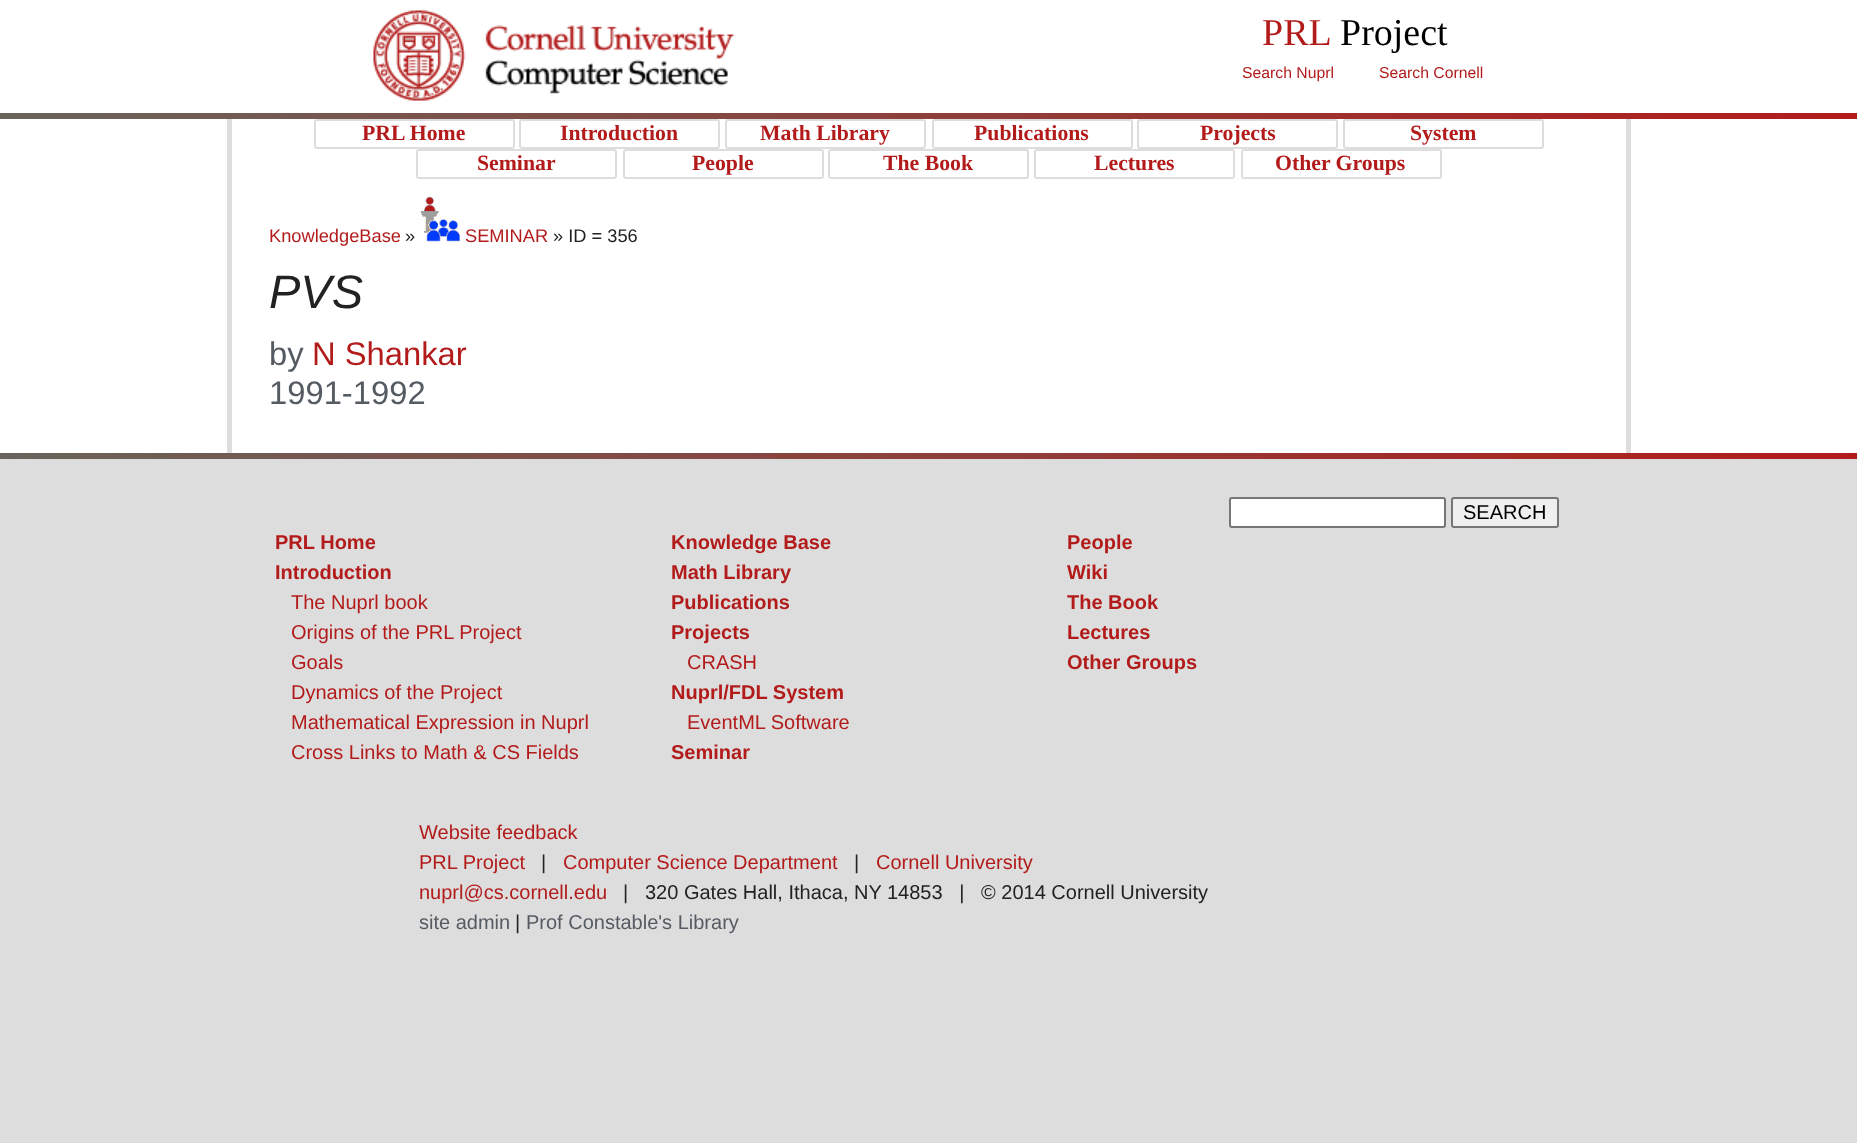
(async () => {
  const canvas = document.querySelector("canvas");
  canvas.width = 1857;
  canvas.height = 1143;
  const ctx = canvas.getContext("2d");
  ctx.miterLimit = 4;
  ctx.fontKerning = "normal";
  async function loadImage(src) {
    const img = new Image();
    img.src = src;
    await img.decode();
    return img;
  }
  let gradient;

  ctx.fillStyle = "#dddddd";
  ctx.fillRect(0, 0, 1857, 1143);
  ctx.fillStyle = "#ffffff";
  ctx.fillRect(0, 0, 1857, 113);
  ctx.drawImage(await loadImage("img/1.png"), 373, 10, 361, 91);
  gradient = ctx.createLinearGradient(0, 116, 1857, 115);
  gradient.addColorStop(0, "#68645b");
  gradient.addColorStop(1, "#b31b1b");
  ctx.fillStyle = gradient;
  ctx.fillRect(0, 113, 1857, 6);
  for (const [x, y, w, h, color] of [
    [0, 119, 1857, 334, "#ffffff"],
    [1626, 119, 5, 334, "#dddddd"],
    [227, 119, 5, 334, "#dddddd"],
  ]) {
    ctx.fillStyle = color;
    ctx.fillRect(x, y, w, h);
  }
  ctx.beginPath();
  ctx.roundRect(315, 120, 199, 28, 2);
  ctx.strokeStyle = "#dddddd";
  ctx.lineWidth = 2;
  ctx.stroke();
  ctx.beginPath();
  ctx.roundRect(520, 120, 199, 28, 2);
  ctx.stroke();
  ctx.beginPath();
  ctx.roundRect(726, 120, 199, 28, 2);
  ctx.stroke();
  ctx.beginPath();
  ctx.roundRect(933, 120, 199, 28, 2);
  ctx.stroke();
  ctx.beginPath();
  ctx.roundRect(1138, 120, 199, 28, 2);
  ctx.stroke();
  ctx.beginPath();
  ctx.roundRect(1344, 120, 199, 28, 2);
  ctx.stroke();
  ctx.beginPath();
  ctx.roundRect(417, 150, 199, 28, 2);
  ctx.stroke();
  ctx.beginPath();
  ctx.roundRect(624, 150, 199, 28, 2);
  ctx.stroke();
  ctx.beginPath();
  ctx.roundRect(829, 150, 199, 28, 2);
  ctx.stroke();
  ctx.beginPath();
  ctx.roundRect(1035, 150, 199, 28, 2);
  ctx.stroke();
  ctx.beginPath();
  ctx.roundRect(1242, 150, 199, 28, 2);
  ctx.stroke();
  ctx.drawImage(await loadImage("img/2.png"), 420, 196, 40, 46);
  gradient = ctx.createLinearGradient(0, 456, 1857, 456);
  gradient.addColorStop(0, "#68645b");
  gradient.addColorStop(1, "#b31b1b");
  ctx.fillStyle = gradient;
  ctx.fillRect(0, 453, 1857, 6);
  ctx.fillStyle = "#ffffff";
  ctx.beginPath();
  ctx.roundRect(1230, 498, 215, 29, 2);
  ctx.fill();
  ctx.strokeStyle = "#767676";
  ctx.stroke();
  ctx.fillStyle = "#efefef";
  ctx.beginPath();
  ctx.roundRect(1452, 498, 106, 29, 2);
  ctx.fill();
  ctx.stroke();
  ctx.font = "38px Liberation Serif";
  ctx.fillStyle = "#b31b1b";
  ctx.fillText("PRL", 1262, 45);
  ctx.fillStyle = "#000000";
  ctx.fillText("Project", 1340, 45);
  ctx.font = "15.75px Liberation Sans";
  ctx.fillStyle = "#b31b1b";
  ctx.fillText("Search Nuprl", 1242, 78);
  ctx.fillText("Search Cornell", 1379, 78);
  ctx.font = "bold 21.75px Liberation Serif";
  for (const [text, x, y] of [
    ["PRL Home", 362, 140],
    ["Introduction", 560, 140],
    ["Math Library", 760, 140],
    ["Publications", 974, 140],
    ["Projects", 1200, 140],
    ["System", 1410, 140],
    ["Seminar", 477, 170],
    ["People", 692, 170],
    ["The Book", 883, 170],
    ["Lectures", 1094, 170],
    ["Other Groups", 1275, 170],
  ]) {
    ctx.fillText(text, x, y);
  }
  ctx.font = "18.25px Liberation Sans";
  ctx.fillText("KnowledgeBase", 269, 242);
  ctx.fillStyle = "#222222";
  ctx.fillText("»", 405, 242);
  ctx.fillStyle = "#b31b1b";
  ctx.fillText("SEMINAR", 465, 242);
  ctx.fillStyle = "#222222";
  ctx.fillText("» ID = 356", 553, 242);
  ctx.font = "italic 47px Liberation Sans";
  ctx.fillText("PVS", 269, 308);
  ctx.font = "32.75px Liberation Sans";
  ctx.fillStyle = "#555b62";
  ctx.fillText("by", 269, 365);
  ctx.fillStyle = "#b31b1b";
  ctx.fillText("N Shankar", 312, 365);
  ctx.fillStyle = "#555b62";
  ctx.fillText("1991-1992", 269, 404);
  ctx.font = "20px Liberation Sans";
  ctx.fillStyle = "#000000";
  ctx.fillText("SEARCH", 1463, 519);
  ctx.font = "bold 20px Liberation Sans";
  ctx.fillStyle = "#b31b1b";
  ctx.fillText("PRL Home", 275, 549);
  ctx.fillText("Introduction", 275, 579);
  ctx.font = "20px Liberation Sans";
  for (const [text, x, y] of [
    ["The Nuprl book", 291, 609],
    ["Origins of the PRL Project", 291, 639],
    ["Goals", 291, 669],
    ["Dynamics of the Project", 291, 699],
    ["Mathematical Expression in Nuprl", 291, 729],
    ["Cross Links to Math & CS Fields", 291, 759],
  ]) {
    ctx.fillText(text, x, y);
  }
  ctx.font = "bold 20px Liberation Sans";
  for (const [text, x, y] of [
    ["Knowledge Base", 671, 549],
    ["Math Library", 671, 579],
    ["Publications", 671, 609],
    ["Projects", 671, 639],
  ]) {
    ctx.fillText(text, x, y);
  }
  ctx.font = "20px Liberation Sans";
  ctx.fillText("CRASH", 687, 669);
  ctx.font = "bold 20px Liberation Sans";
  ctx.fillText("Nuprl/FDL System", 671, 699);
  ctx.font = "20px Liberation Sans";
  ctx.fillText("EventML Software", 687, 729);
  ctx.font = "bold 20px Liberation Sans";
  for (const [text, x, y] of [
    ["Seminar", 671, 759],
    ["People", 1067, 549],
    ["Wiki", 1067, 579],
    ["The Book", 1067, 609],
    ["Lectures", 1067, 639],
    ["Other Groups", 1067, 669],
  ]) {
    ctx.fillText(text, x, y);
  }
  ctx.font = "20px Liberation Sans";
  ctx.fillText("Website feedback", 419, 839);
  ctx.fillText("PRL Project", 419, 869);
  ctx.fillStyle = "#222222";
  ctx.fillText("|", 541, 869);
  ctx.fillStyle = "#b31b1b";
  ctx.fillText("Computer Science Department", 563, 869);
  ctx.fillStyle = "#222222";
  ctx.fillText("|", 854, 869);
  ctx.fillStyle = "#b31b1b";
  ctx.fillText("Cornell University", 876, 869);
  ctx.fillText("nuprl@cs.cornell.edu", 419, 899);
  ctx.fillStyle = "#222222";
  for (const [text, x, y] of [
    ["|", 623, 899],
    ["320 Gates Hall, Ithaca, NY 14853   |", 645, 899],
    ["© 2014 Cornell University", 981, 899],
  ]) {
    ctx.fillText(text, x, y);
  }
  ctx.fillStyle = "#555b62";
  ctx.fillText("site admin", 419, 929);
  ctx.fillStyle = "#222222";
  ctx.fillText("|", 515, 929);
  ctx.fillStyle = "#555b62";
  ctx.fillText("Prof Constable's Library", 526, 929);
})();
